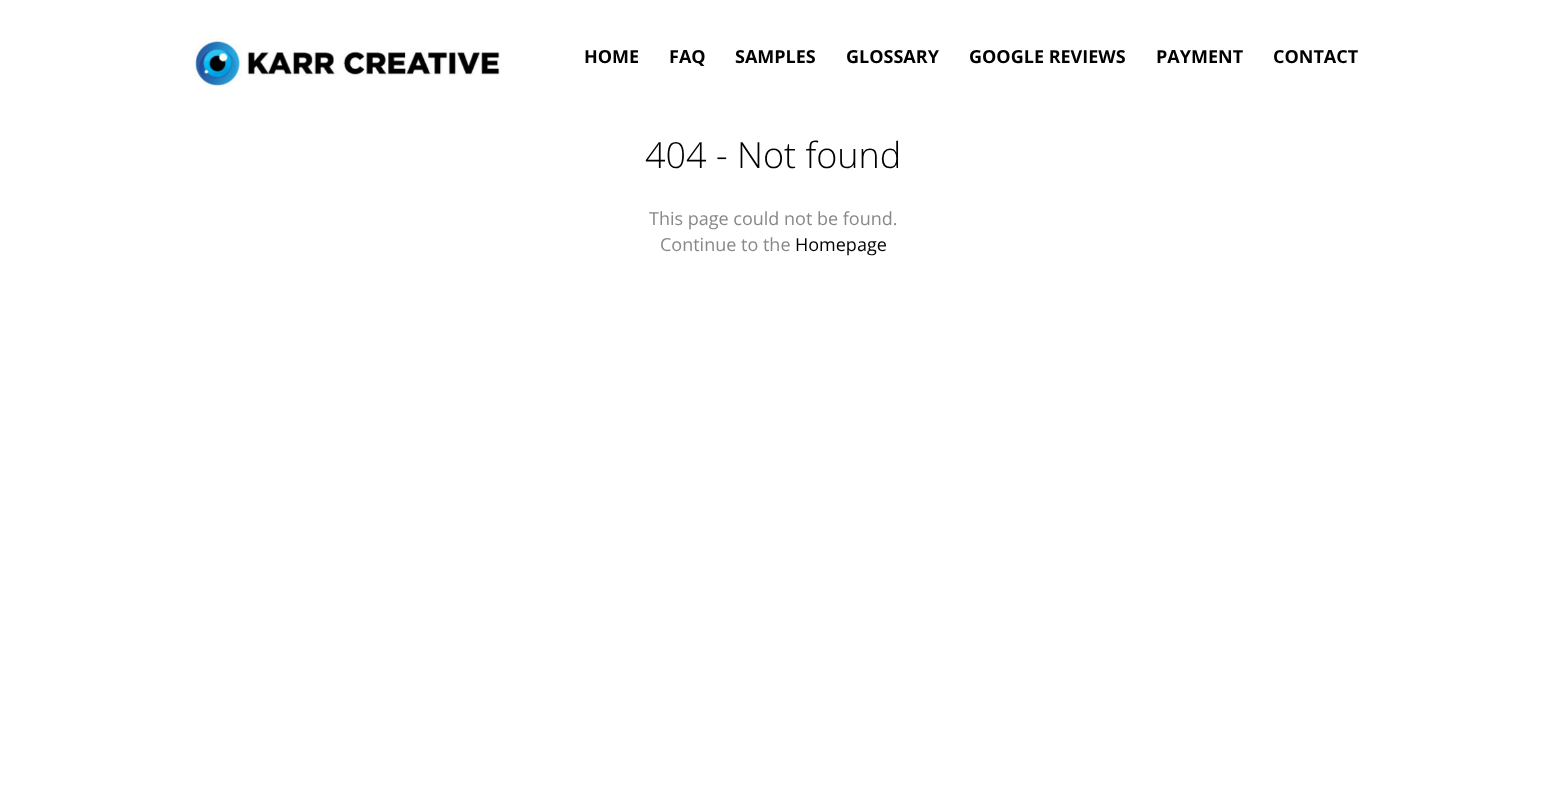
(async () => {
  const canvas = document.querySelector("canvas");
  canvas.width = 1546;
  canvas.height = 811;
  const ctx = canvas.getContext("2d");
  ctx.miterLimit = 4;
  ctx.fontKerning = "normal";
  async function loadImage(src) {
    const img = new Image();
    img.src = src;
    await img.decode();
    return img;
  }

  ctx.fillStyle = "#ffffff";
  ctx.fillRect(0, 0, 1546, 811);
  ctx.drawImage(await loadImage("img/1.png"), 193, 38, 307, 49);
  ctx.font = "bold 18px Open Sans";
  ctx.fillStyle = "#000000";
  for (const [text, x, y] of [
    ["HOME", 584, 63],
    ["FAQ", 669, 63],
    ["SAMPLES", 735, 63],
    ["GLOSSARY", 846, 63],
    ["GOOGLE REVIEWS", 969, 63],
    ["PAYMENT", 1156, 63],
    ["CONTACT", 1273, 63],
  ]) {
    ctx.fillText(text, x, y);
  }
  ctx.font = "300 36px Open Sans";
  ctx.fillText("404 - Not found", 645, 168);
  ctx.font = "18px Open Sans";
  ctx.fillStyle = "#888888";
  ctx.fillText("This page could not be found.", 649, 225);
  ctx.fillText("Continue to the", 660, 251);
  ctx.fillStyle = "#000000";
  ctx.fillText("Homepage", 795, 251);
})();
